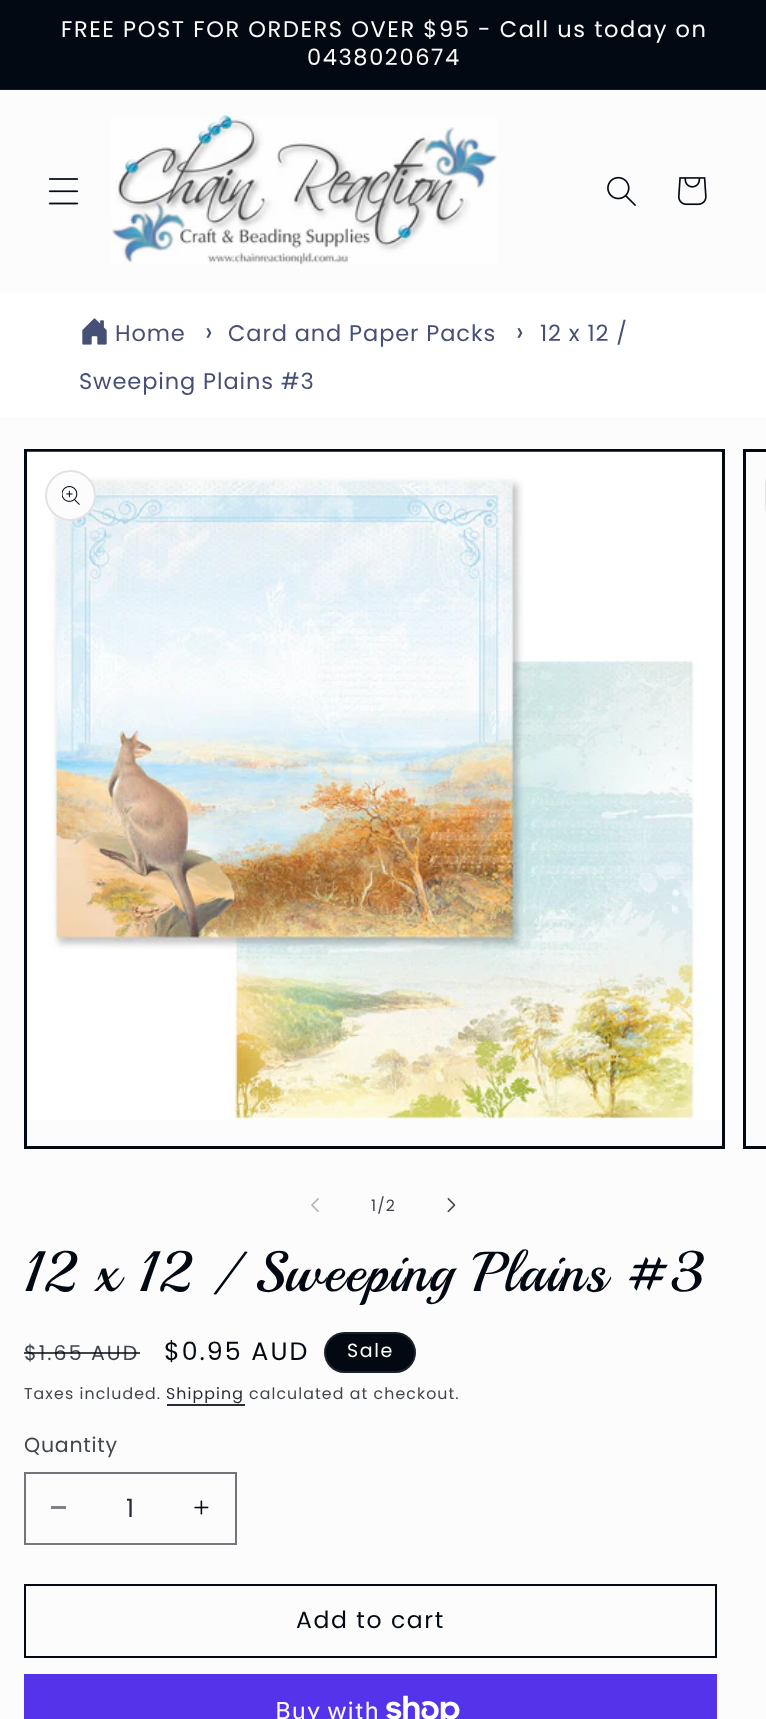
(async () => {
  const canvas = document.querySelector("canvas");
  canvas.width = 766;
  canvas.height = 1719;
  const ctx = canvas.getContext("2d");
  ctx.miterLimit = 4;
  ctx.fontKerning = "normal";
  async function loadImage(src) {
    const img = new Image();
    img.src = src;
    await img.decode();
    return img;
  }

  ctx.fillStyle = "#fcfcfc";
  ctx.fillRect(0, 0, 766, 1719);
  ctx.fillStyle = "#020912";
  ctx.fillRect(0, 0, 766, 89);
  ctx.fillStyle = "#161c25";
  ctx.fillRect(0, 89, 766, 1);
  ctx.drawImage(await loadImage("img/1.png"), 48, 178, 31, 27);
  ctx.drawImage(await loadImage("img/2.png"), 111, 115, 386, 150);
  ctx.drawImage(await loadImage("img/3.png"), 607, 176, 29, 30);
  ctx.drawImage(await loadImage("img/4.png"), 678, 177, 29, 29);
  ctx.fillStyle = "#ffffff";
  ctx.fillRect(0, 293, 766, 124);
  ctx.drawImage(await loadImage("img/5.png"), 82, 318, 25, 27);
  ctx.strokeStyle = "#020912";
  ctx.lineWidth = 3;
  ctx.strokeRect(25.5, 450.5, 698, 697);
  ctx.drawImage(await loadImage("img/6.png"), 27, 451, 695, 669);
  ctx.fillStyle = "#fcfcfc";
  ctx.beginPath();
  ctx.arc(70.5, 495.5, 25.5, 0, Math.PI * 2);
  ctx.fill();
  ctx.beginPath();
  ctx.arc(70.5, 495.5, 24.5, 0, Math.PI * 2);
  ctx.strokeStyle = "rgba(2, 9, 18, 0.1)";
  ctx.lineWidth = 2;
  ctx.stroke();
  ctx.drawImage(await loadImage("img/7.png"), 62, 486, 18, 19);
  ctx.strokeStyle = "#020912";
  ctx.lineWidth = 3;
  ctx.strokeRect(744.5, 450.5, 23, 697);
  ctx.beginPath();
  ctx.roundRect(766, 471, 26, 49, 24);
  ctx.strokeStyle = "#e3e4e5";
  ctx.lineWidth = 2;
  ctx.stroke();
  ctx.drawImage(await loadImage("img/8.png"), 311, 1198, 8, 14);
  ctx.drawImage(await loadImage("img/9.png"), 447, 1198, 9, 15);
  ctx.fillStyle = "#020912";
  ctx.beginPath();
  ctx.roundRect(324, 1332, 92, 41, 20.5);
  ctx.fill();
  ctx.beginPath();
  ctx.roundRect(325, 1333, 90, 39, 19.5);
  ctx.strokeStyle = "rgba(252, 252, 252, 0.1)";
  ctx.stroke();
  ctx.fillStyle = "#282d35";
  ctx.fillRect(167, 1404, 78, 2);
  ctx.fillStyle = "#7f8387";
  ctx.fillRect(51, 1506, 15, 3);
  ctx.drawImage(await loadImage("img/10.png"), 194, 1500, 15, 15);
  ctx.strokeStyle = "#72767b";
  ctx.strokeRect(25, 1473, 211, 71);
  ctx.strokeStyle = "#020912";
  ctx.strokeRect(25, 1585, 691, 72);
  ctx.fillStyle = "#5433eb";
  ctx.fillRect(24, 1674, 693, 45);
  ctx.drawImage(await loadImage("img/11.png"), 386, 1695, 74, 24);
  ctx.letterSpacing = "1.6px";
  ctx.font = "22.5px Poppins";
  ctx.fillStyle = "#fcfcfc";
  ctx.fillText("FREE POST FOR ORDERS OVER $95 - Call us today on", 61, 37);
  ctx.fillText("0438020674", 307, 65);
  ctx.letterSpacing = "0.9px";
  ctx.fillStyle = "#465076";
  ctx.fillText("Home", 115, 341);
  ctx.font = "27px Poppins";
  ctx.fillText("›", 205, 341);
  ctx.font = "22.5px Poppins";
  ctx.fillText("Card and Paper Packs", 228, 341);
  ctx.font = "27px Poppins";
  ctx.fillText("›", 516, 341);
  ctx.font = "22.5px Poppins";
  ctx.fillText("12 x 12 /", 540, 341);
  ctx.fillText("Sweeping Plains #3", 79, 389);
  ctx.letterSpacing = "1.1px";
  ctx.font = "15.75px Poppins";
  ctx.fillStyle = "#41464d";
  ctx.fillText("1/2", 371, 1211);
  ctx.font = "56.25px Playball";
  ctx.fillStyle = "#020912";
  ctx.fillText("12 x 12 / Sweeping Plains #3", 24, 1291);
  ctx.letterSpacing = "2px";
  ctx.font = "20.5px Poppins";
  ctx.fillStyle = "#41464d";
  ctx.fillText("$1.65 AUD", 24, 1360);
  ctx.fillStyle = "rgba(2, 9, 18, 0.75)";
  ctx.fillRect(24, 1352, 116, 2);
  ctx.font = "25.25px Poppins";
  ctx.fillStyle = "#020912";
  ctx.fillText("$0.95 AUD", 164, 1360);
  ctx.letterSpacing = "1.6px";
  ctx.font = "19px Poppins";
  ctx.fillStyle = "#fcfcfc";
  ctx.fillText("Sale", 347, 1357);
  ctx.letterSpacing = "1.1px";
  ctx.font = "15.75px Poppins";
  ctx.fillStyle = "#41464d";
  ctx.fillText("Taxes included.", 24, 1399);
  ctx.fillStyle = "#282d35";
  ctx.fillText("Shipping", 166, 1399);
  ctx.fillStyle = "#41464d";
  ctx.fillText("calculated at checkout.", 249, 1399);
  ctx.letterSpacing = "0.75px";
  ctx.font = "20.5px Poppins";
  ctx.fillText("Quantity", 24, 1452);
  ctx.letterSpacing = "0px";
  ctx.font = "25.25px Poppins";
  ctx.fillStyle = "#282d35";
  ctx.fillText("1", 126, 1517);
  ctx.letterSpacing = "1.6px";
  ctx.font = "23.5px Poppins";
  ctx.fillStyle = "#020912";
  ctx.fillText("Add to cart", 296, 1628);
  ctx.letterSpacing = "0.9px";
  ctx.font = "24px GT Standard";
  ctx.fillStyle = "#fcfcfc";
  ctx.fillText("Buy with", 275, 1719);
})();
